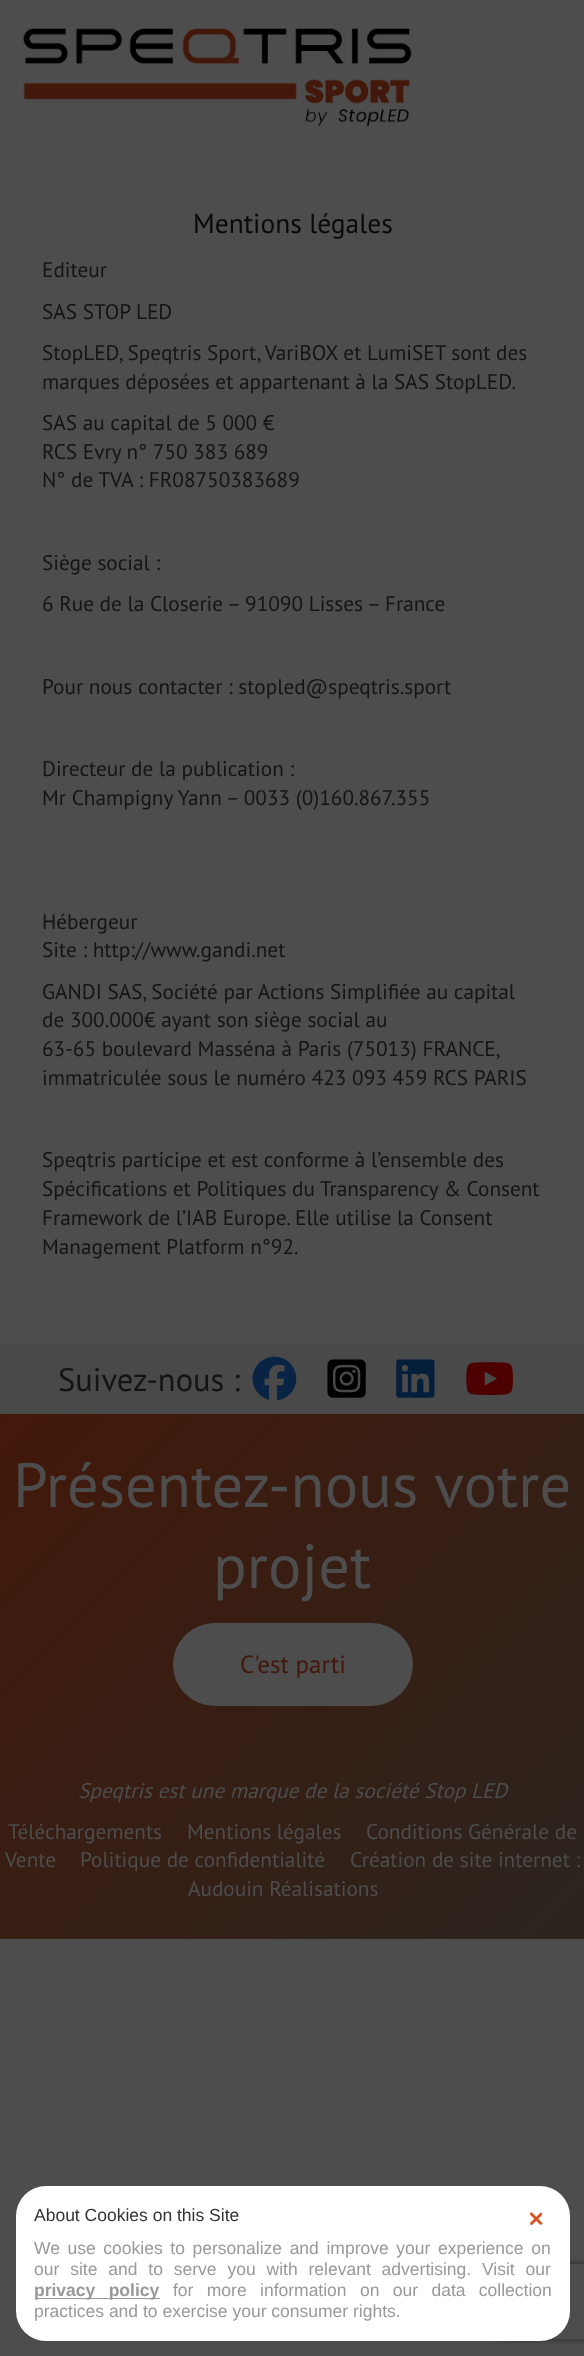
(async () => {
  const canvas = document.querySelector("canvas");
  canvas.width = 584;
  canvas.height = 2356;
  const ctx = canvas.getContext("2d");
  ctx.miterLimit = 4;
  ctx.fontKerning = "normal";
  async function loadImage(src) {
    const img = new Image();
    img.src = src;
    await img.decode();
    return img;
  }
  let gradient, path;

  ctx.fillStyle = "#4d4d4d";
  ctx.fillRect(0, 0, 584, 2356);
  ctx.drawImage(await loadImage("img/1.png"), 23, 28, 389, 99);
  ctx.fillStyle = "#494949";
  ctx.fillRect(0, 1345, 584, 69);
  ctx.drawImage(await loadImage("img/2.png"), 252, 1356, 45, 45);
  ctx.drawImage(await loadImage("img/3.png"), 327, 1359, 39, 39);
  ctx.drawImage(await loadImage("img/4.png"), 396, 1359, 39, 39);
  ctx.drawImage(await loadImage("img/5.png"), 466, 1362, 47, 33);
  gradient = ctx.createLinearGradient(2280, 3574, 60, 1354);
  gradient.addColorStop(0, "#42180a");
  gradient.addColorStop(0.5, "#133132");
  gradient.addColorStop(1, "#42180a");
  ctx.fillStyle = gradient;
  ctx.fillRect(0, 1414, 584, 525);
  ctx.fillStyle = "#4d4d4d";
  ctx.beginPath();
  ctx.roundRect(173, 1623, 240, 83, 41.5);
  ctx.fill();
  ctx.save();
  path = new Path2D("M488 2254H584V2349H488ZM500.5 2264H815.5C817 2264 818 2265 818 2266.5V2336.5C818 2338 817 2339 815.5 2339H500.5C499 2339 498 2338 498 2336.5V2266.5C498 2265 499 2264 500.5 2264Z");
  ctx.clip(path, "evenodd");
  ctx.fillStyle = "#262626";
  ctx.filter = "blur(3px)";
  ctx.beginPath();
  ctx.roundRect(498, 2264, 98, 75, 2.5);
  ctx.fill();
  ctx.filter = "none";
  ctx.restore();
  ctx.fillStyle = "#ffffff";
  ctx.beginPath();
  ctx.roundRect(16, 2186, 554, 155, 30);
  ctx.fill();
  ctx.fillStyle = "#dd5120";
  path = new Path2D("M532.5 2213C533.5 2214.5 542.5 2222.5 542.5 2223.5L542 2224.5C540 2225.5 537.5 2222 537 2221.5L530 2214.5C529.5 2213 531.5 2212 532.5 2213Z");
  ctx.fill(path);
  path = new Path2D("M530.5 2222.5C532 2221.5 540 2212.5 541 2212.5L542 2213C543 2215 539.5 2217.5 539 2218L532 2225C530.5 2225.5 529.5 2223.5 530.5 2222.5Z");
  ctx.fill(path);
  ctx.fillStyle = "#999999";
  ctx.fillRect(35, 2298, 125, 1);
  ctx.font = "27.5px PT Sans";
  ctx.fillStyle = "#090908";
  ctx.fillText("Mentions légales", 193, 233);
  ctx.font = "21.25px PT Sans";
  ctx.fillStyle = "#141414";
  for (const [text, x, y] of [
    ["Editeur", 42, 277],
    ["SAS STOP LED", 42, 319],
    ["StopLED, Speqtris Sport, VariBOX et LumiSET sont des", 42, 360],
    ["marques déposées et appartenant à la SAS StopLED.", 42, 389],
    ["SAS au capital de 5 000 €", 42, 430],
    ["RCS Evry n° 750 383 689", 42, 459],
    ["N° de TVA : FR08750383689", 42, 487],
    ["Siège social :", 42, 570],
    ["6 Rue de la Closerie – 91090 Lisses – France", 42, 611],
    ["Pour nous contacter : stopled@speqtris.sport", 42, 694],
    ["Directeur de la publication :", 42, 776],
    ["Mr Champigny Yann – 0033 (0)160.867.355", 42, 805],
    ["Hébergeur", 42, 929],
    ["Site : http://www.gandi.net", 42, 957],
    ["GANDI SAS, Société par Actions Simplifiée au capital", 42, 999],
    ["de 300.000€ ayant son siège social au", 42, 1027],
    ["63-65 boulevard Masséna à Paris (75013) FRANCE,", 42, 1056],
    ["immatriculée sous le numéro 423 093 459 RCS PARIS", 42, 1085],
    ["Speqtris participe et est conforme à l’ensemble des", 42, 1167],
    ["Spécifications et Politiques du Transparency & Consent", 42, 1196],
    ["Framework de l’IAB Europe. Elle utilise la Consent", 42, 1225],
    ["Management Platform n°92.", 42, 1254],
  ]) {
    ctx.fillText(text, x, y);
  }
  ctx.font = "32.5px PT Sans";
  ctx.fillText("Suivez-nous :", 58, 1391);
  ctx.font = "62.5px PT Sans";
  ctx.fillStyle = "#4d4d4d";
  ctx.fillText("Présentez-nous votre", 13, 1507);
  ctx.fillText("projet", 213, 1588);
  ctx.font = "25px PT Sans";
  ctx.fillStyle = "#42180a";
  ctx.fillText("C'est parti", 240, 1673);
  ctx.font = "italic 21.25px PT Sans";
  ctx.fillStyle = "#4d4d4d";
  ctx.fillText("Speqtris est une marque de la société Stop LED", 78, 1798);
  ctx.font = "21.25px PT Sans";
  for (const [text, x, y] of [
    ["Téléchargements", 8, 1839],
    ["Mentions légales", 187, 1839],
    ["Conditions Générale de", 366, 1839],
    ["Vente", 5, 1867],
    ["Politique de confidentialité", 80, 1867],
    ["Création de site internet :", 350, 1867],
    ["Audouin Réalisations", 188, 1896],
  ]) {
    ctx.fillText(text, x, y);
  }
  ctx.font = "17.5px Liberation Sans";
  ctx.fillStyle = "#333333";
  ctx.fillText("About Cookies on this Site", 34, 2221);
  ctx.wordSpacing = "2.75px";
  ctx.fillStyle = "#999999";
  ctx.fillText("We use cookies to personalize and improve your experience on", 34, 2254);
  ctx.wordSpacing = "6px";
  ctx.fillText("our site and to serve you with relevant advertising. Visit our", 34, 2275);
  ctx.wordSpacing = "8.5px";
  ctx.font = "bold 17.5px Liberation Sans";
  ctx.fillText("privacy policy", 34, 2296);
  ctx.font = "17.5px Liberation Sans";
  ctx.fillText("for more information on our data collection", 173, 2296);
  ctx.wordSpacing = "0px";
  ctx.fillText("practices and to exercise your consumer rights.", 34, 2317);
})();
